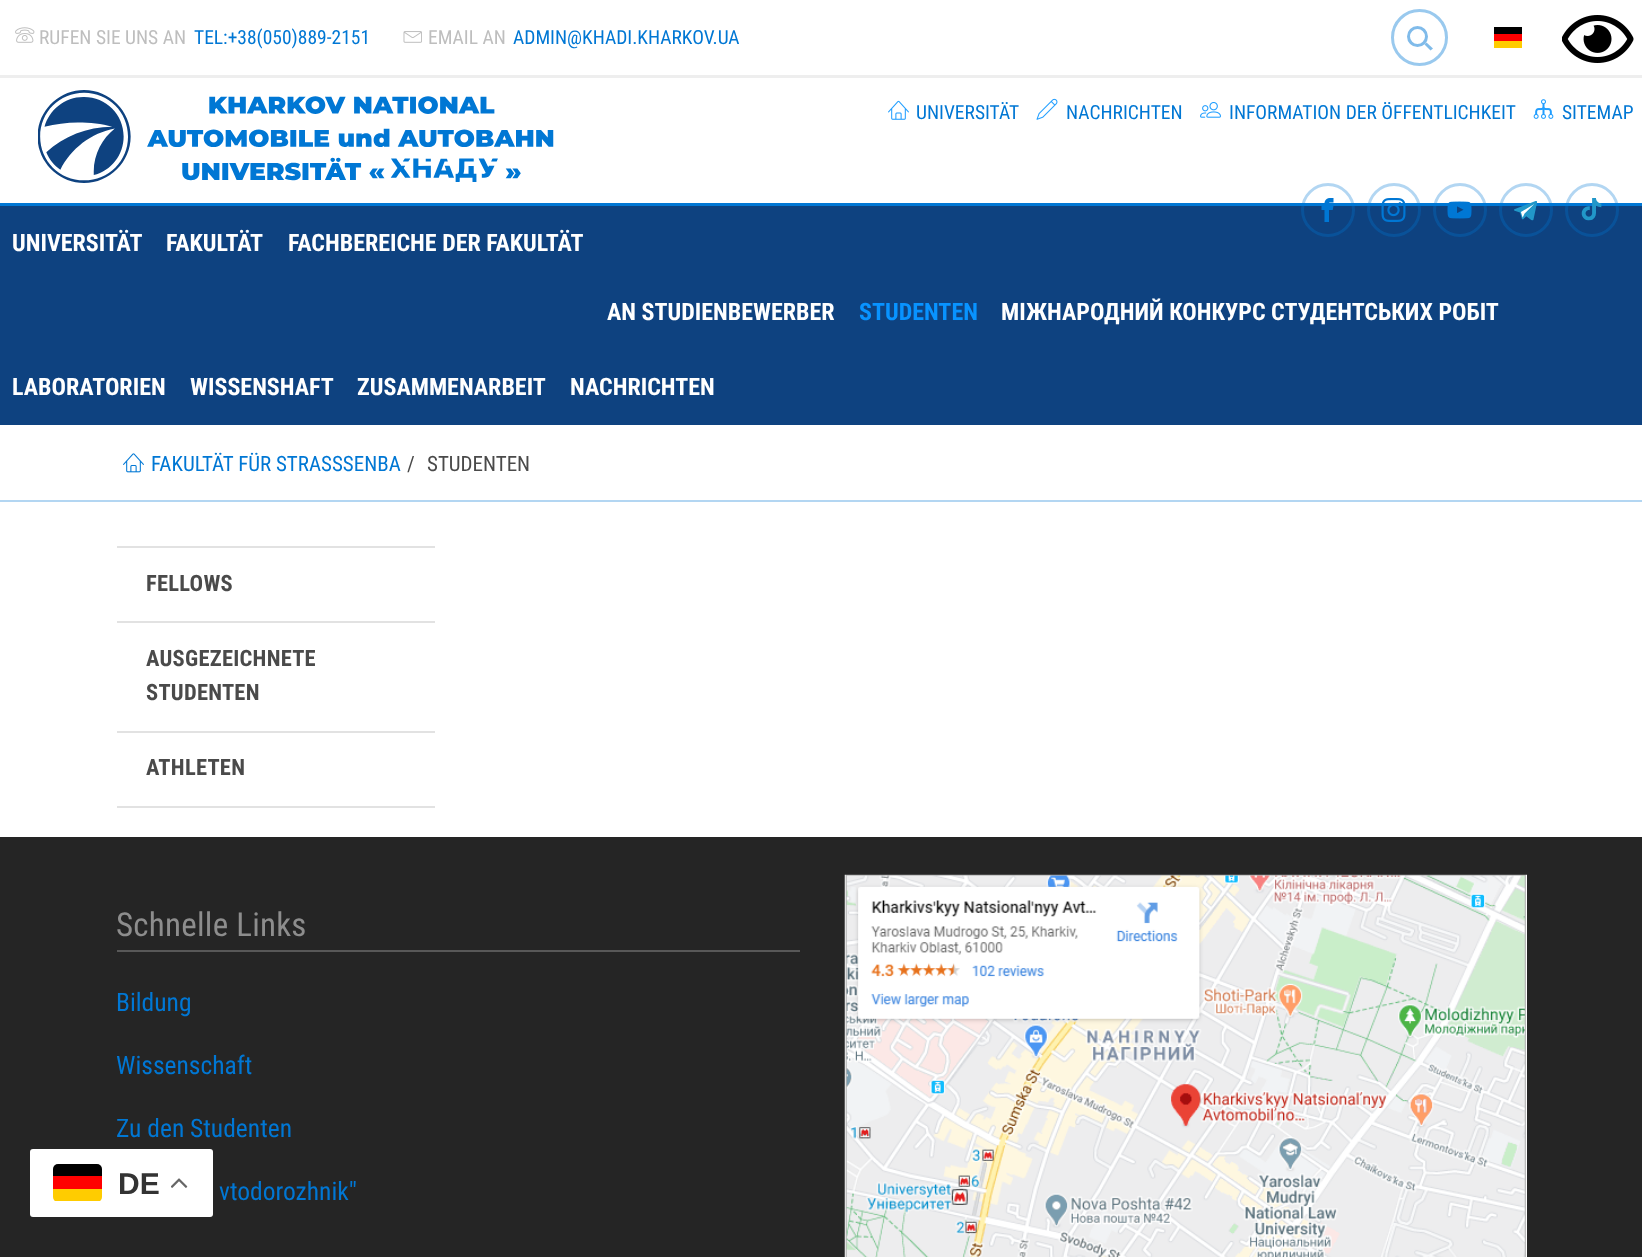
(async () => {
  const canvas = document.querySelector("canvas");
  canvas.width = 1642;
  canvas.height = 1257;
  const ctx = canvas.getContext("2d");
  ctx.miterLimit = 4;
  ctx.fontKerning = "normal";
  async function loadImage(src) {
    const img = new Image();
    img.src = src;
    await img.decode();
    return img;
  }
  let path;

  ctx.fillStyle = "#ffffff";
  ctx.fillRect(0, 0, 1642, 1257);
  ctx.fillStyle = "#eeeeee";
  ctx.fillRect(0, 75, 1642, 3);
  ctx.drawImage(await loadImage("img/1.png"), 15, 27, 20, 16);
  ctx.drawImage(await loadImage("img/2.png"), 403, 31, 19, 12);
  ctx.beginPath();
  ctx.arc(1419.5, 37.5, 27, 0, Math.PI * 2);
  ctx.strokeStyle = "#99c9ee";
  ctx.lineWidth = 3;
  ctx.stroke();
  ctx.beginPath();
  ctx.arc(1417.5, 36.5, 9, 0, Math.PI * 2);
  ctx.strokeStyle = "#80bbea";
  ctx.stroke();
  ctx.fillStyle = "rgba(0, 119, 212, 0.5)";
  path = new Path2D("M1426.5 42.5L1433 48.5L1430.5 50.5L1424.5 44.5Z");
  ctx.fill(path);
  for (const [x, y, w, h, color] of [
    [1494, 41, 28, 7, "#ffcc00"],
    [1494, 27, 28, 7, "#000000"],
    [1494, 34, 28, 7, "#ff0000"],
  ]) {
    ctx.fillStyle = color;
    ctx.fillRect(x, y, w, h);
  }
  ctx.drawImage(await loadImage("img/3.png"), 1562, 15, 72, 48);
  ctx.drawImage(await loadImage("img/4.png"), 888, 100, 21, 20);
  ctx.drawImage(await loadImage("img/5.png"), 1036, 98, 22, 22);
  ctx.drawImage(await loadImage("img/6.png"), 1200, 102, 21, 16);
  ctx.drawImage(await loadImage("img/7.png"), 1533, 99, 21, 20);
  ctx.drawImage(await loadImage("img/8.png"), 38, 90, 516, 93);
  ctx.fillStyle = "#0e4280";
  ctx.fillRect(0, 206, 1642, 219);
  ctx.fillStyle = "#0077d4";
  ctx.fillRect(0, 203, 1642, 3);
  ctx.drawImage(await loadImage("img/9.png"), 1321, 198, 13, 24);
  ctx.beginPath();
  ctx.arc(1328, 210, 25.5, 0, Math.PI * 2);
  ctx.strokeStyle = "rgba(0, 119, 212, 0.3)";
  ctx.stroke();
  ctx.drawImage(await loadImage("img/10.png"), 1381, 198, 25, 24);
  ctx.beginPath();
  ctx.arc(1394, 210, 25.5, 0, Math.PI * 2);
  ctx.stroke();
  ctx.drawImage(await loadImage("img/11.png"), 1447, 201, 25, 18);
  ctx.beginPath();
  ctx.arc(1460, 210, 25.5, 0, Math.PI * 2);
  ctx.stroke();
  ctx.drawImage(await loadImage("img/12.png"), 1514, 201, 24, 20);
  ctx.beginPath();
  ctx.arc(1526, 210, 25.5, 0, Math.PI * 2);
  ctx.stroke();
  ctx.drawImage(await loadImage("img/13.png"), 1581, 198, 21, 23);
  ctx.beginPath();
  ctx.arc(1592, 210, 25.5, 0, Math.PI * 2);
  ctx.stroke();
  ctx.fillStyle = "#b3d6f2";
  ctx.fillRect(0, 500, 1642, 2);
  ctx.drawImage(await loadImage("img/14.png"), 123, 453, 21, 20);
  for (const [x, y, w, h, color] of [
    [117, 546, 318, 2, "#e2e2e2"],
    [117, 621, 318, 2, "#e2e2e2"],
    [117, 731, 318, 2, "#e2e2e2"],
    [117, 806, 318, 2, "#e2e2e2"],
    [0, 837, 1642, 420, "#252525"],
    [117, 950, 683, 2, "#585858"],
  ]) {
    ctx.fillStyle = color;
    ctx.fillRect(x, y, w, h);
  }
  ctx.drawImage(await loadImage("img/15.png"), 844, 874, 683, 383);
  ctx.fillStyle = "#ffffff";
  ctx.beginPath();
  ctx.roundRect(30, 1149, 183, 68, 3);
  ctx.fill();
  ctx.save();
  ctx.beginPath();
  ctx.roundRect(53, 1164, 49, 38, 5);
  ctx.clip();
  ctx.fillStyle = "#ffcc00";
  ctx.fillRect(53, 1189, 49, 12);
  ctx.restore();
  ctx.fillStyle = "#000000";
  ctx.beginPath();
  ctx.roundRect(53, 1164, 49, 12, [5, 5, 0, 0]);
  ctx.fill();
  ctx.fillStyle = "#ff0000";
  ctx.fillRect(53, 1176, 49, 13);
  ctx.drawImage(await loadImage("img/16.png"), 171, 1178, 17, 10);
  ctx.font = "19.5px Roboto Condensed";
  ctx.fillStyle = "#bebebe";
  ctx.fillText("RUFEN SIE UNS AN", 39, 44);
  ctx.fillStyle = "#0077d4";
  ctx.fillText("TEL:+38(050)889-2151", 194, 44);
  ctx.fillStyle = "#bebebe";
  ctx.fillText("EMAIL AN", 428, 44);
  ctx.fillStyle = "#0077d4";
  for (const [text, x, y] of [
    ["ADMIN@KHADI.KHARKOV.UA", 513, 44],
    ["UNIVERSITÄT", 916, 119],
    ["NACHRICHTEN", 1066, 119],
    ["INFORMATION DER ÖFFENTLICHKEIT", 1229, 119],
    ["SITEMAP", 1562, 119],
  ]) {
    ctx.fillText(text, x, y);
  }
  ctx.font = "bold 24px Roboto Condensed";
  ctx.fillStyle = "#ffffff";
  for (const [text, x, y] of [
    ["UNIVERSITÄT", 12, 251],
    ["FAKULTÄT", 166, 251],
    ["FACHBEREICHE DER FAKULTÄT", 288, 251],
    ["AN STUDIENBEWERBER", 607, 320],
  ]) {
    ctx.fillText(text, x, y);
  }
  ctx.fillStyle = "#0893ff";
  ctx.fillText("STUDENTEN", 859, 320);
  ctx.fillStyle = "#ffffff";
  for (const [text, x, y] of [
    ["МІЖНАРОДНИЙ КОНКУРС СТУДЕНТСЬКИХ РОБІТ", 1001, 320],
    ["LABORATORIEN", 12, 395],
    ["WISSENSHAFT", 190, 395],
    ["ZUSAMMENARBEIT", 357, 395],
    ["NACHRICHTEN", 570, 395],
  ]) {
    ctx.fillText(text, x, y);
  }
  ctx.font = "21px Roboto Condensed";
  ctx.fillStyle = "#0077d4";
  ctx.fillText("FAKULTÄT FÜR STRASSSENBA", 151, 471);
  ctx.fillStyle = "#4a4a4a";
  ctx.fillText("/", 407, 471);
  ctx.fillText("STUDENTEN", 427, 471);
  ctx.letterSpacing = "0.25px";
  ctx.font = "bold 22.5px Roboto Condensed";
  for (const [text, x, y] of [
    ["FELLOWS", 146, 591],
    ["AUSGEZEICHNETE", 146, 666],
    ["STUDENTEN", 146, 700],
    ["ATHLETEN", 146, 775],
  ]) {
    ctx.fillText(text, x, y);
  }
  ctx.font = "33px Roboto Condensed";
  ctx.fillStyle = "#8d8d8d";
  ctx.fillText("Schnelle Links", 116, 936);
  ctx.letterSpacing = "0px";
  ctx.font = "25.5px Roboto Condensed";
  ctx.fillStyle = "#0077d4";
  for (const [text, x, y] of [
    ["Bildung", 116, 1011],
    ["Wissenschaft", 116, 1074],
    ["Zu den Studenten", 116, 1137],
    ["vtodorozhnik\"", 219, 1200],
  ]) {
    ctx.fillText(text, x, y);
  }
  ctx.font = "bold 30px Liberation Sans";
  ctx.fillStyle = "#333333";
  ctx.fillText("DE", 118, 1194);
})();
